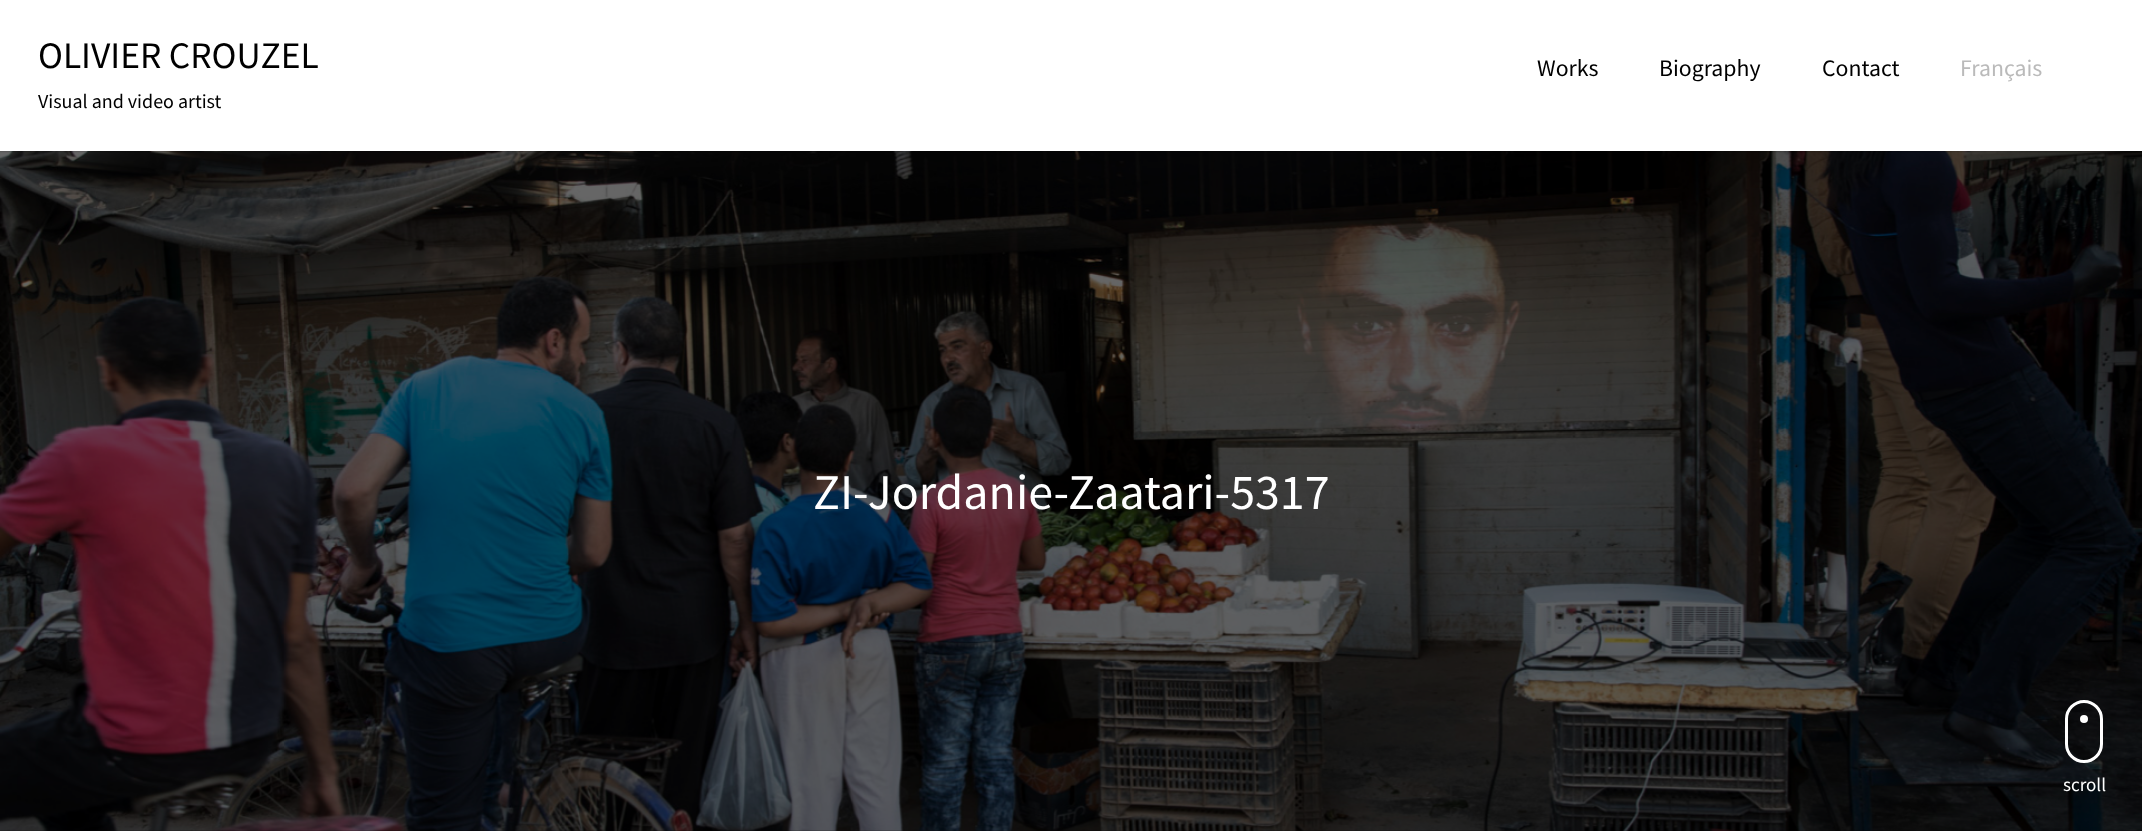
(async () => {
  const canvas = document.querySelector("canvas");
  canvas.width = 2142;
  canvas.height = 831;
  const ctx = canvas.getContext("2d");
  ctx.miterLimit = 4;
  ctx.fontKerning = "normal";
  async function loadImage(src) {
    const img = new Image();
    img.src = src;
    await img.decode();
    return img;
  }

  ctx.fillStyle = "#ffffff";
  ctx.fillRect(0, 0, 2142, 831);
  ctx.fillStyle = "#000000";
  ctx.fillRect(0, 151, 2142, 680);
  ctx.drawImage(await loadImage("img/1.png"), 0, 151, 2142, 680);
  ctx.beginPath();
  ctx.roundRect(2066.5, 701.5, 35, 60, 17.5);
  ctx.strokeStyle = "#ffffff";
  ctx.lineWidth = 3;
  ctx.stroke();
  ctx.fillStyle = "#ffffff";
  ctx.beginPath();
  ctx.arc(2084, 719, 4, 0, Math.PI * 2);
  ctx.fill();
  ctx.font = "37.5px Source Sans Pro";
  ctx.fillStyle = "#000000";
  ctx.fillText("OLIVIER CROUZEL", 38, 68);
  ctx.font = "20px Source Sans Pro";
  ctx.fillText("Visual and video artist", 38, 108);
  ctx.font = "23.75px Source Sans Pro";
  for (const [text, x, y] of [
    ["Works", 1537, 76],
    ["Biography", 1659, 76],
    ["Contact", 1822, 76],
  ]) {
    ctx.fillText(text, x, y);
  }
  ctx.fillStyle = "#bababa";
  ctx.fillText("Français", 1960, 76);
  ctx.font = "50px Source Sans Pro";
  ctx.fillStyle = "#ffffff";
  ctx.fillText("ZI-Jordanie-Zaatari-5317", 813, 509);
  ctx.font = "19px Source Sans Pro";
  ctx.fillText("scroll", 2063, 791);
})();
